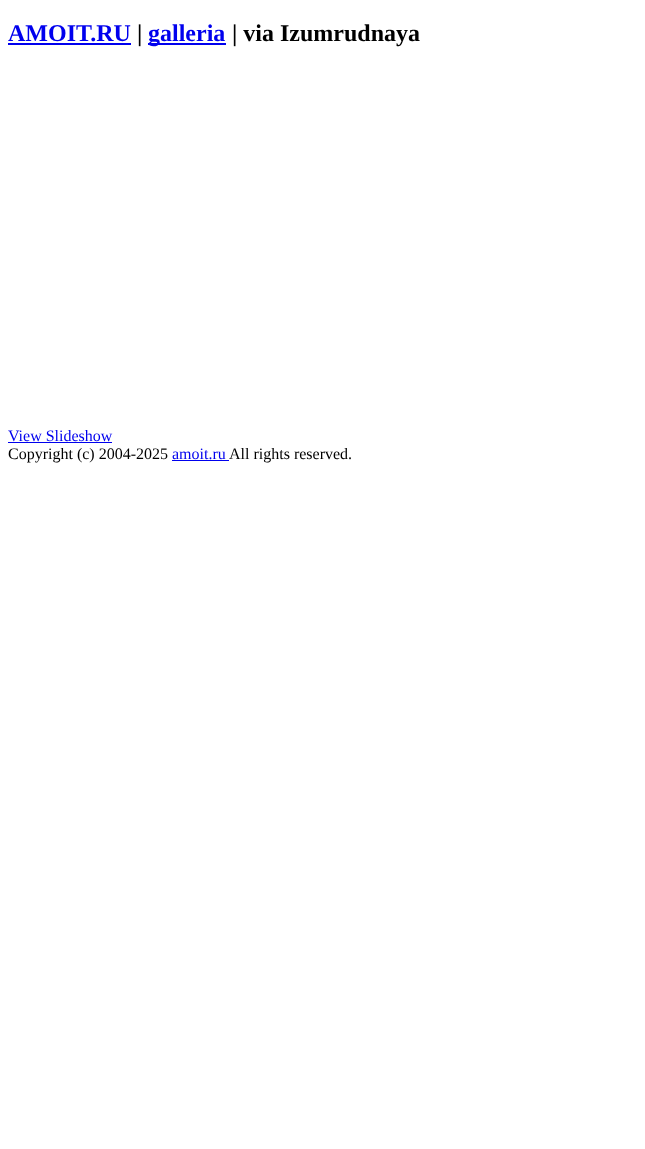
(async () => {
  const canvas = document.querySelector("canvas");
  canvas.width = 645;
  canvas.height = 1149;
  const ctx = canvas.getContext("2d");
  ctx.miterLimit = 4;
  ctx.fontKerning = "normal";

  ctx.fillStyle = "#ffffff";
  ctx.fillRect(0, 0, 645, 1149);
  for (const [x, y, w, h, color] of [
    [8, 43, 123, 2, "#0000ee"],
    [148, 43, 78, 2, "#0000ee"],
    [8, 442, 104, 1, "#0000ee"],
    [172, 460, 57, 1, "#0000ee"],
  ]) {
    ctx.fillStyle = color;
    ctx.fillRect(x, y, w, h);
  }
  ctx.font = "bold 24px Liberation Serif";
  ctx.fillText("AMOIT.RU", 8, 41);
  ctx.fillStyle = "#000000";
  ctx.fillText("|", 137, 41);
  ctx.fillStyle = "#0000ee";
  ctx.fillText("galleria", 148, 41);
  ctx.fillStyle = "#000000";
  ctx.fillText("| via Izumrudnaya", 232, 41);
  ctx.font = "16px Liberation Serif";
  ctx.fillStyle = "#0000ee";
  ctx.fillText("View Slideshow", 8, 441);
  ctx.fillStyle = "#000000";
  ctx.fillText("Copyright (c) 2004-2025", 8, 459);
  ctx.fillStyle = "#0000ee";
  ctx.fillText("amoit.ru", 172, 459);
  ctx.fillStyle = "#000000";
  ctx.fillText("All rights reserved.", 229, 459);
})();
